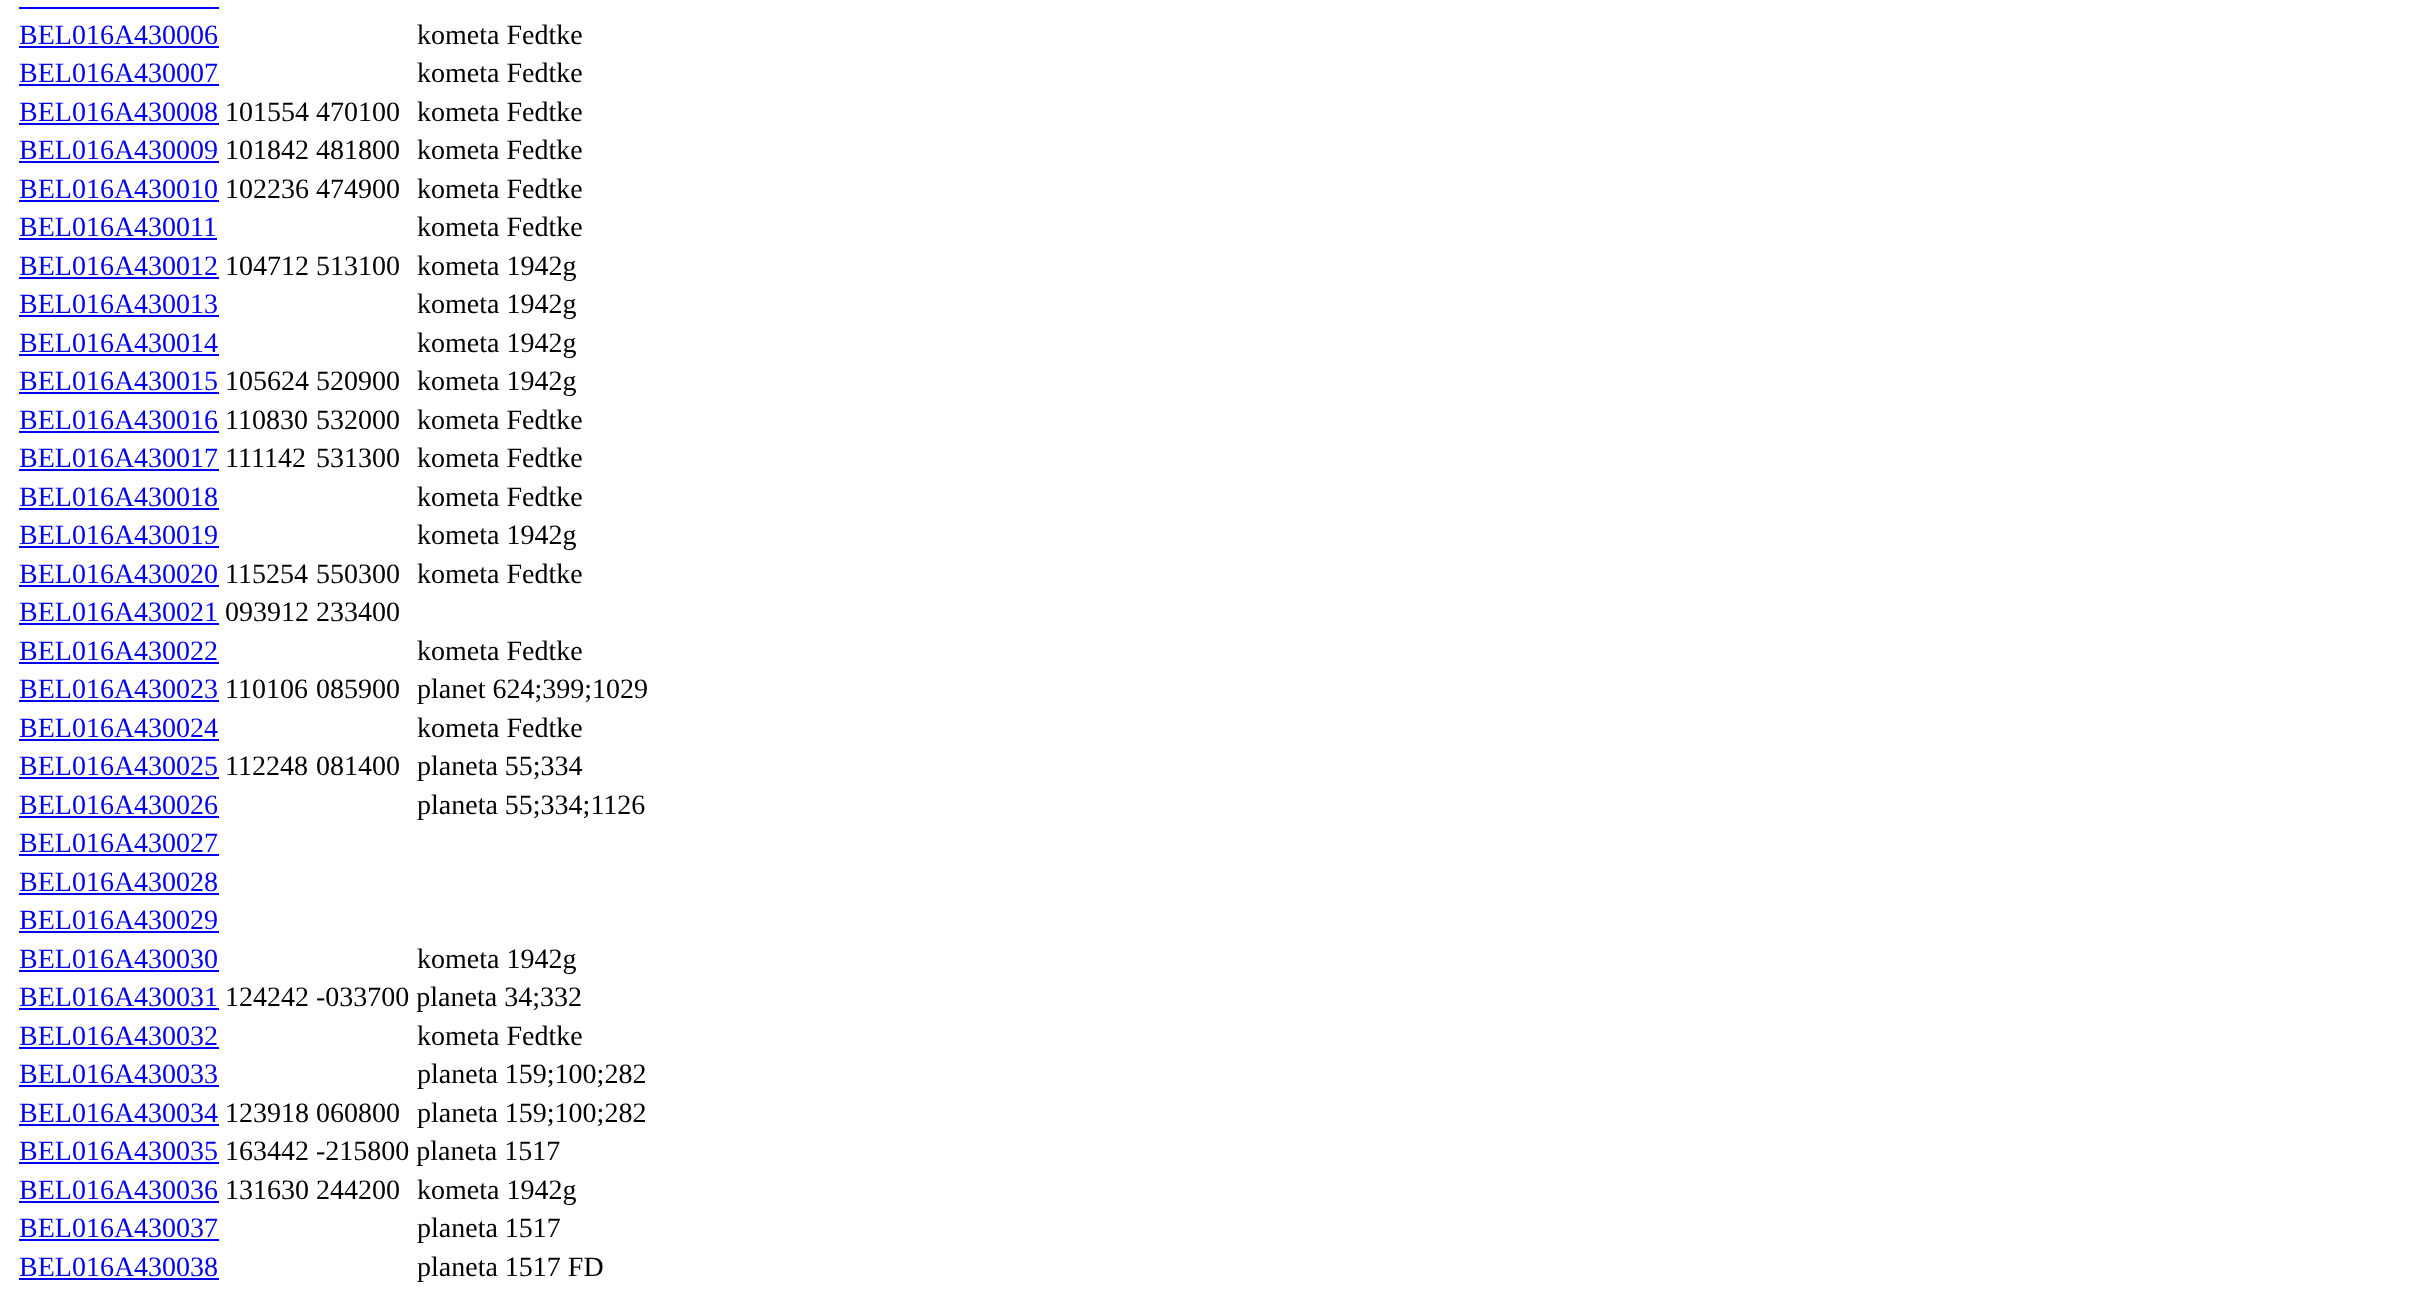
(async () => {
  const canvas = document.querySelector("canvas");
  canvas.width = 2423;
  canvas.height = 1308;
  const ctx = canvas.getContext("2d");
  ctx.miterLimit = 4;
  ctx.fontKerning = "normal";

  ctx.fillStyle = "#ffffff";
  ctx.fillRect(0, 0, 2423, 1308);
  for (const [x, y, w, h, color] of [
    [19, 7, 200, 2, "#0000ee"],
    [19, 46, 200, 2, "#0000ee"],
    [19, 84, 200, 2, "#0000ee"],
    [19, 123, 200, 2, "#0000ee"],
    [19, 161, 200, 2, "#0000ee"],
    [19, 200, 200, 2, "#0000ee"],
    [19, 238, 198, 2, "#0000ee"],
    [19, 277, 200, 2, "#0000ee"],
    [19, 315, 200, 2, "#0000ee"],
    [19, 354, 200, 2, "#0000ee"],
    [19, 392, 200, 2, "#0000ee"],
    [19, 431, 200, 2, "#0000ee"],
    [19, 469, 200, 2, "#0000ee"],
    [19, 508, 200, 2, "#0000ee"],
    [19, 546, 200, 2, "#0000ee"],
    [19, 585, 200, 2, "#0000ee"],
    [19, 623, 200, 2, "#0000ee"],
    [19, 662, 200, 2, "#0000ee"],
    [19, 700, 200, 2, "#0000ee"],
    [19, 739, 200, 2, "#0000ee"],
    [19, 777, 200, 2, "#0000ee"],
    [19, 816, 200, 2, "#0000ee"],
    [19, 854, 200, 2, "#0000ee"],
    [19, 893, 200, 2, "#0000ee"],
    [19, 931, 200, 2, "#0000ee"],
    [19, 970, 200, 2, "#0000ee"],
    [19, 1008, 200, 2, "#0000ee"],
    [19, 1047, 200, 2, "#0000ee"],
    [19, 1085, 200, 2, "#0000ee"],
    [19, 1124, 200, 2, "#0000ee"],
    [19, 1162, 200, 2, "#0000ee"],
    [19, 1201, 200, 2, "#0000ee"],
    [19, 1239, 200, 2, "#0000ee"],
    [19, 1278, 200, 2, "#0000ee"],
  ]) {
    ctx.fillStyle = color;
    ctx.fillRect(x, y, w, h);
  }
  ctx.font = "28px Liberation Serif";
  ctx.fillText("BEL016A430006", 19, 44);
  ctx.fillStyle = "#000000";
  ctx.fillText("kometa Fedtke", 417, 44);
  ctx.fillStyle = "#0000ee";
  ctx.fillText("BEL016A430007", 19, 82);
  ctx.fillStyle = "#000000";
  ctx.fillText("kometa Fedtke", 417, 82);
  ctx.fillStyle = "#0000ee";
  ctx.fillText("BEL016A430008", 19, 121);
  ctx.fillStyle = "#000000";
  ctx.fillText("101554 470100", 225, 121);
  ctx.fillText("kometa Fedtke", 417, 121);
  ctx.fillStyle = "#0000ee";
  ctx.fillText("BEL016A430009", 19, 159);
  ctx.fillStyle = "#000000";
  ctx.fillText("101842 481800", 225, 159);
  ctx.fillText("kometa Fedtke", 417, 159);
  ctx.fillStyle = "#0000ee";
  ctx.fillText("BEL016A430010", 19, 198);
  ctx.fillStyle = "#000000";
  ctx.fillText("102236 474900", 225, 198);
  ctx.fillText("kometa Fedtke", 417, 198);
  ctx.fillStyle = "#0000ee";
  ctx.fillText("BEL016A430011", 19, 236);
  ctx.fillStyle = "#000000";
  ctx.fillText("kometa Fedtke", 417, 236);
  ctx.fillStyle = "#0000ee";
  ctx.fillText("BEL016A430012", 19, 275);
  ctx.fillStyle = "#000000";
  ctx.fillText("104712 513100", 225, 275);
  ctx.fillText("kometa 1942g", 417, 275);
  ctx.fillStyle = "#0000ee";
  ctx.fillText("BEL016A430013", 19, 313);
  ctx.fillStyle = "#000000";
  ctx.fillText("kometa 1942g", 417, 313);
  ctx.fillStyle = "#0000ee";
  ctx.fillText("BEL016A430014", 19, 352);
  ctx.fillStyle = "#000000";
  ctx.fillText("kometa 1942g", 417, 352);
  ctx.fillStyle = "#0000ee";
  ctx.fillText("BEL016A430015", 19, 390);
  ctx.fillStyle = "#000000";
  ctx.fillText("105624 520900", 225, 390);
  ctx.fillText("kometa 1942g", 417, 390);
  ctx.fillStyle = "#0000ee";
  ctx.fillText("BEL016A430016", 19, 429);
  ctx.fillStyle = "#000000";
  for (const [text, x, y] of [
    ["110830", 225, 429],
    ["532000", 316, 429],
    ["kometa Fedtke", 417, 429],
  ]) {
    ctx.fillText(text, x, y);
  }
  ctx.fillStyle = "#0000ee";
  ctx.fillText("BEL016A430017", 19, 467);
  ctx.fillStyle = "#000000";
  for (const [text, x, y] of [
    ["111142", 225, 467],
    ["531300", 316, 467],
    ["kometa Fedtke", 417, 467],
  ]) {
    ctx.fillText(text, x, y);
  }
  ctx.fillStyle = "#0000ee";
  ctx.fillText("BEL016A430018", 19, 506);
  ctx.fillStyle = "#000000";
  ctx.fillText("kometa Fedtke", 417, 506);
  ctx.fillStyle = "#0000ee";
  ctx.fillText("BEL016A430019", 19, 544);
  ctx.fillStyle = "#000000";
  ctx.fillText("kometa 1942g", 417, 544);
  ctx.fillStyle = "#0000ee";
  ctx.fillText("BEL016A430020", 19, 583);
  ctx.fillStyle = "#000000";
  for (const [text, x, y] of [
    ["115254", 225, 583],
    ["550300", 316, 583],
    ["kometa Fedtke", 417, 583],
  ]) {
    ctx.fillText(text, x, y);
  }
  ctx.fillStyle = "#0000ee";
  ctx.fillText("BEL016A430021", 19, 621);
  ctx.fillStyle = "#000000";
  ctx.fillText("093912 233400", 225, 621);
  ctx.fillStyle = "#0000ee";
  ctx.fillText("BEL016A430022", 19, 660);
  ctx.fillStyle = "#000000";
  ctx.fillText("kometa Fedtke", 417, 660);
  ctx.fillStyle = "#0000ee";
  ctx.fillText("BEL016A430023", 19, 698);
  ctx.fillStyle = "#000000";
  for (const [text, x, y] of [
    ["110106", 225, 698],
    ["085900", 316, 698],
    ["planet 624;399;1029", 417, 698],
  ]) {
    ctx.fillText(text, x, y);
  }
  ctx.fillStyle = "#0000ee";
  ctx.fillText("BEL016A430024", 19, 737);
  ctx.fillStyle = "#000000";
  ctx.fillText("kometa Fedtke", 417, 737);
  ctx.fillStyle = "#0000ee";
  ctx.fillText("BEL016A430025", 19, 775);
  ctx.fillStyle = "#000000";
  for (const [text, x, y] of [
    ["112248", 225, 775],
    ["081400", 316, 775],
    ["planeta 55;334", 417, 775],
  ]) {
    ctx.fillText(text, x, y);
  }
  ctx.fillStyle = "#0000ee";
  ctx.fillText("BEL016A430026", 19, 814);
  ctx.fillStyle = "#000000";
  ctx.fillText("planeta 55;334;1126", 417, 814);
  ctx.fillStyle = "#0000ee";
  for (const [text, x, y] of [
    ["BEL016A430027", 19, 852],
    ["BEL016A430028", 19, 891],
    ["BEL016A430029", 19, 929],
    ["BEL016A430030", 19, 968],
  ]) {
    ctx.fillText(text, x, y);
  }
  ctx.fillStyle = "#000000";
  ctx.fillText("kometa 1942g", 417, 968);
  ctx.fillStyle = "#0000ee";
  ctx.fillText("BEL016A430031", 19, 1006);
  ctx.fillStyle = "#000000";
  ctx.fillText("124242 -033700 planeta 34;332", 225, 1006);
  ctx.fillStyle = "#0000ee";
  ctx.fillText("BEL016A430032", 19, 1045);
  ctx.fillStyle = "#000000";
  ctx.fillText("kometa Fedtke", 417, 1045);
  ctx.fillStyle = "#0000ee";
  ctx.fillText("BEL016A430033", 19, 1083);
  ctx.fillStyle = "#000000";
  ctx.fillText("planeta 159;100;282", 417, 1083);
  ctx.fillStyle = "#0000ee";
  ctx.fillText("BEL016A430034", 19, 1122);
  ctx.fillStyle = "#000000";
  ctx.fillText("123918 060800", 225, 1122);
  ctx.fillText("planeta 159;100;282", 417, 1122);
  ctx.fillStyle = "#0000ee";
  ctx.fillText("BEL016A430035", 19, 1160);
  ctx.fillStyle = "#000000";
  ctx.fillText("163442 -215800 planeta 1517", 225, 1160);
  ctx.fillStyle = "#0000ee";
  ctx.fillText("BEL016A430036", 19, 1199);
  ctx.fillStyle = "#000000";
  ctx.fillText("131630 244200", 225, 1199);
  ctx.fillText("kometa 1942g", 417, 1199);
  ctx.fillStyle = "#0000ee";
  ctx.fillText("BEL016A430037", 19, 1237);
  ctx.fillStyle = "#000000";
  ctx.fillText("planeta 1517", 417, 1237);
  ctx.fillStyle = "#0000ee";
  ctx.fillText("BEL016A430038", 19, 1276);
  ctx.fillStyle = "#000000";
  ctx.fillText("planeta 1517 FD", 417, 1276);
})();
